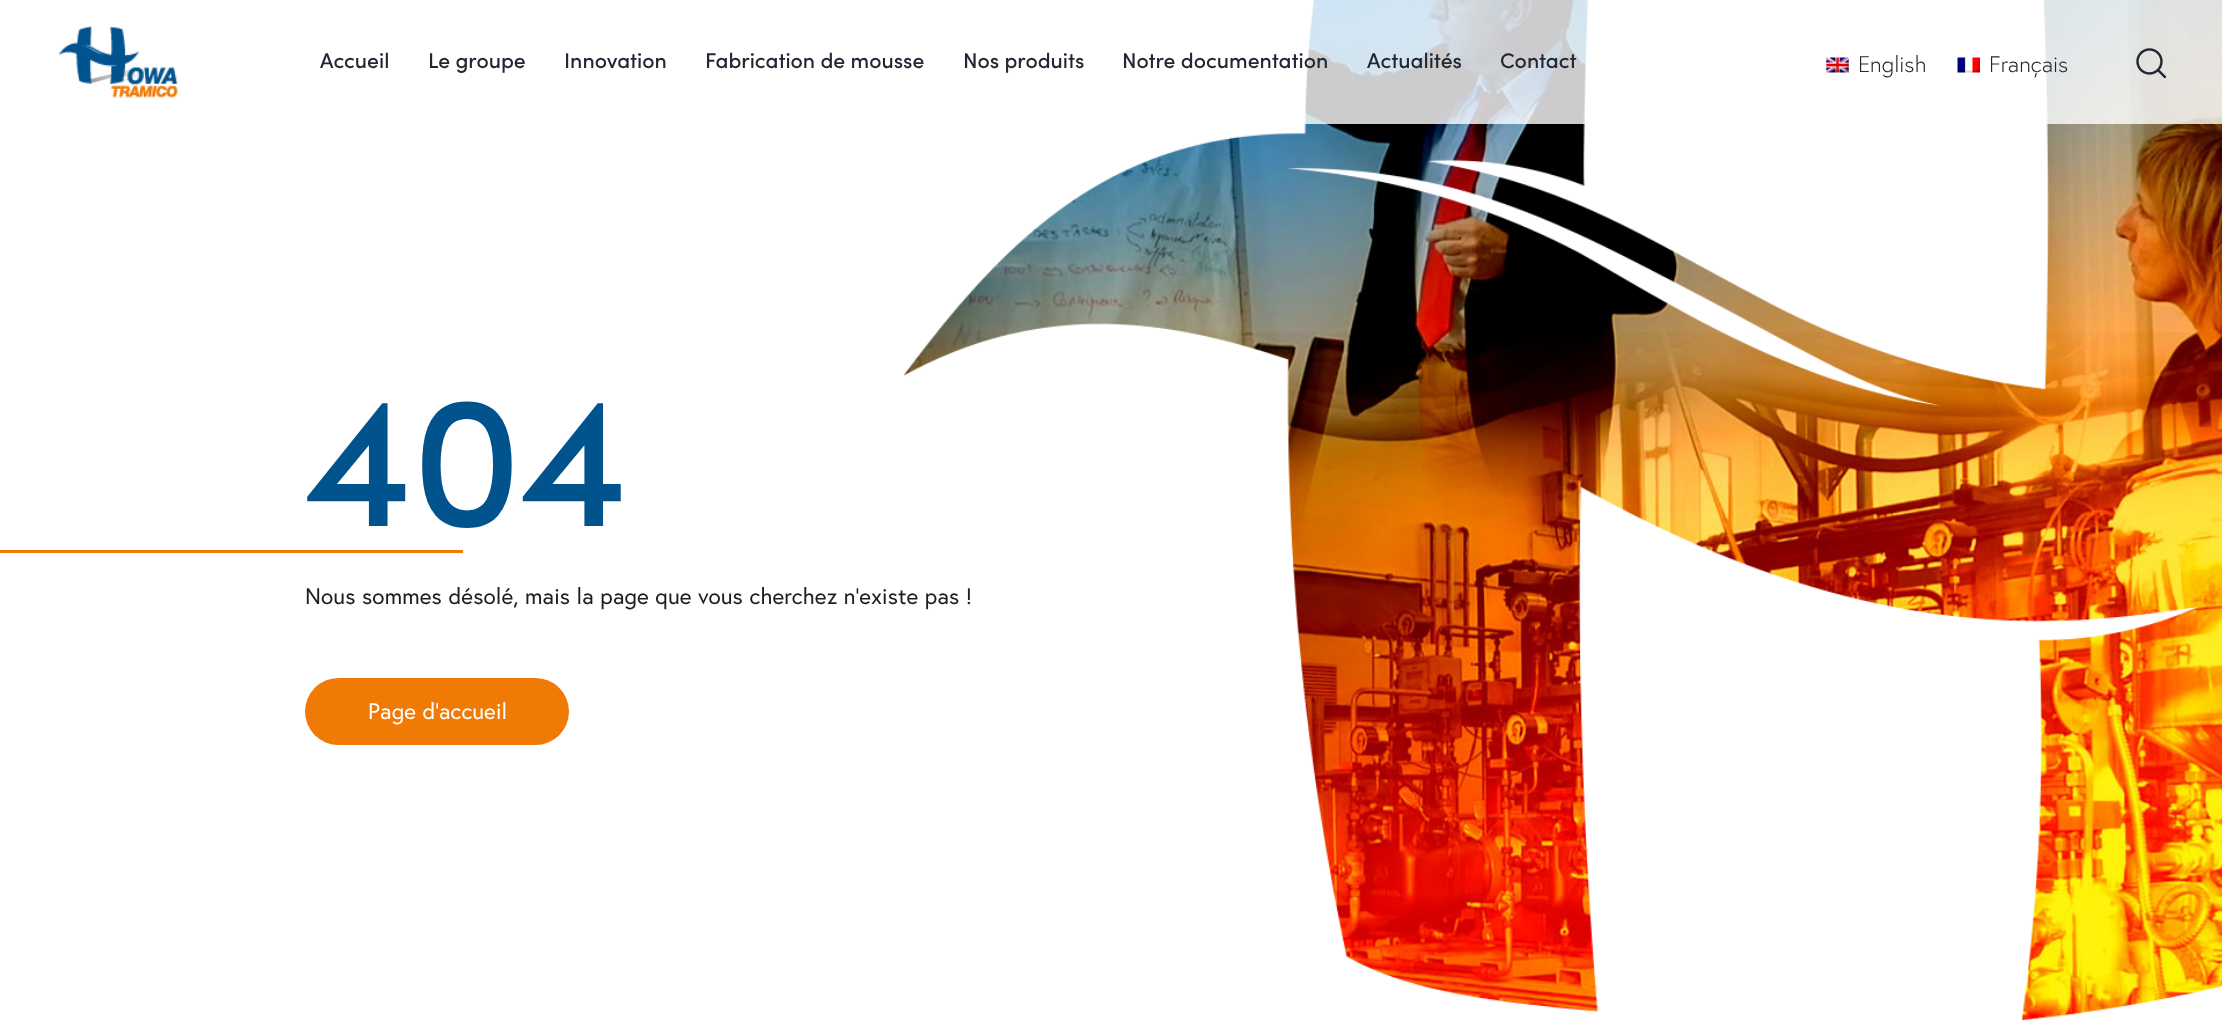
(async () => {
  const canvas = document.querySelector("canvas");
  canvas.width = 2222;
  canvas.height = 1035;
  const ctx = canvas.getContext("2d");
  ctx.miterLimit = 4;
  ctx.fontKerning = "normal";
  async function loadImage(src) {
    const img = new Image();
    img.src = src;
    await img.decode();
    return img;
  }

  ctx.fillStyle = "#ffffff";
  ctx.fillRect(0, 0, 2222, 1035);
  ctx.drawImage(await loadImage("img/5.png"), 904, 0, 1318, 1021);
  ctx.drawImage(await loadImage("img/6.png"), 0, 0, 2222, 1035);
  ctx.fillStyle = "rgba(255, 255, 255, 0.8)";
  ctx.fillRect(1304, 0, 918, 124);
  ctx.drawImage(await loadImage("img/1.png"), 58, 26, 120, 72);
  ctx.drawImage(await loadImage("img/2.png"), 1826, 57, 23, 16);
  ctx.drawImage(await loadImage("img/3.png"), 1957, 57, 23, 16);
  ctx.drawImage(await loadImage("img/4.png"), 2136, 48, 31, 31);
  ctx.fillStyle = "#ef7a06";
  ctx.fillRect(0, 550, 463, 3);
  ctx.beginPath();
  ctx.roundRect(305, 678, 264, 67, 33.5);
  ctx.fill();
  ctx.font = "500 21.25px Sofia";
  ctx.fillStyle = "#222733";
  for (const [text, x, y] of [
    ["Accueil", 320, 68],
    ["Le groupe", 428, 68],
    ["Innovation", 564, 68],
    ["Fabrication de mousse", 705, 68],
    ["Nos produits", 963, 68],
    ["Notre documentation", 1122, 68],
    ["Actualités", 1367, 68],
    ["Contact", 1500, 68],
  ]) {
    ctx.fillText(text, x, y);
  }
  ctx.font = "300 22.5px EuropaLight";
  ctx.fillText("English", 1858, 72);
  ctx.fillText("Français", 1989, 72);
  ctx.letterSpacing = "-2px";
  ctx.font = "500 188px Sofia";
  ctx.fillStyle = "#01538e";
  ctx.fillText("404", 305, 526);
  ctx.letterSpacing = "0.12px";
  ctx.font = "22.5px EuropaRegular";
  ctx.fillStyle = "#1e1e1e";
  ctx.fillText("Nous sommes désolé, mais la page que vous cherchez n’existe pas !", 305, 604);
  ctx.fillStyle = "#ffffff";
  ctx.fillText("Page d'accueil", 368, 719);
})();
